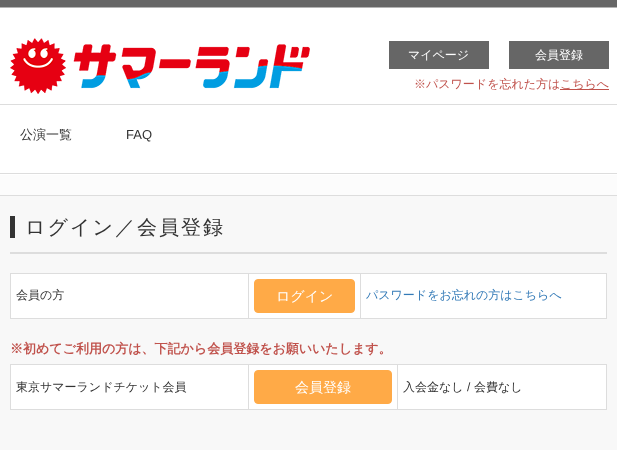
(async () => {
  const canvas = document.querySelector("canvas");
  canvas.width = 617;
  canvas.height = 450;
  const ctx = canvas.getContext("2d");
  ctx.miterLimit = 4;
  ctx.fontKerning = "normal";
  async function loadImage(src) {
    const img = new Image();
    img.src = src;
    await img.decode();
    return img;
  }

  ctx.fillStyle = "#f8f8f8";
  ctx.fillRect(0, 0, 617, 450);
  for (const [x, y, w, h, color] of [
    [0, 8, 617, 165, "#ffffff"],
    [0, 7, 617, 1, "#b3b3b3"],
    [0, 0, 617, 7, "#666666"],
    [0, 173, 617, 1, "#dddddd"],
    [0, 104, 617, 1, "#dddddd"],
  ]) {
    ctx.fillStyle = color;
    ctx.fillRect(x, y, w, h);
  }
  ctx.drawImage(await loadImage("img/1.png"), 10, 38, 300, 56);
  for (const [x, y, w, h, color] of [
    [389, 41, 100, 28, "#666666"],
    [509, 41, 100, 28, "#666666"],
    [560, 89, 49, 1, "#c0524c"],
    [0, 175, 617, 20, "#fcfcfc"],
    [0, 174, 617, 1, "#ffffff"],
    [0, 195, 617, 1, "#dddddd"],
    [10, 216, 5, 22, "#333333"],
    [10, 252, 597, 2, "#dddddd"],
    [10, 273, 597, 1, "#dddddd"],
    [606, 273, 1, 46, "#dddddd"],
    [10, 318, 597, 1, "#dddddd"],
    [10, 273, 1, 46, "#dddddd"],
    [11, 274, 237, 44, "#ffffff"],
    [249, 274, 111, 44, "#ffffff"],
    [248, 273, 1, 46, "#dddddd"],
  ]) {
    ctx.fillStyle = color;
    ctx.fillRect(x, y, w, h);
  }
  ctx.fillStyle = "#ffaa47";
  ctx.beginPath();
  ctx.roundRect(254.5, 279.5, 100, 33, 3.5);
  ctx.fill();
  ctx.strokeStyle = "#ffaa47";
  ctx.stroke();
  for (const [x, y, w, h, color] of [
    [361, 274, 245, 44, "#ffffff"],
    [360, 273, 1, 46, "#dddddd"],
    [10, 364, 597, 1, "#dddddd"],
    [606, 364, 1, 46, "#dddddd"],
    [10, 409, 597, 1, "#dddddd"],
    [10, 364, 1, 46, "#dddddd"],
    [11, 365, 237, 44, "#ffffff"],
    [249, 365, 148, 44, "#ffffff"],
    [248, 364, 1, 46, "#dddddd"],
  ]) {
    ctx.fillStyle = color;
    ctx.fillRect(x, y, w, h);
  }
  ctx.fillStyle = "#ffaa47";
  ctx.beginPath();
  ctx.roundRect(254.5, 370.5, 137, 33, 3.5);
  ctx.fill();
  ctx.stroke();
  ctx.fillStyle = "#ffffff";
  ctx.fillRect(398, 365, 208, 44);
  ctx.fillStyle = "#dddddd";
  ctx.fillRect(397, 364, 1, 46);
  ctx.font = "500 12px WenQuanYi Zen Hei";
  ctx.fillStyle = "#ffffff";
  ctx.fillText("マイページ", 408, 59);
  ctx.fillText("会員登録", 535, 59);
  ctx.fillStyle = "#c0524c";
  ctx.fillText("※パスワードを忘れた方は", 414, 88);
  ctx.fillText("こちらへ", 560, 88);
  ctx.font = "500 13px WenQuanYi Zen Hei";
  ctx.fillStyle = "#333333";
  ctx.fillText("公演一覧", 20, 139);
  ctx.font = "13px Liberation Sans";
  ctx.fillText("FAQ", 126, 139);
  ctx.letterSpacing = "2px";
  ctx.font = "500 20px WenQuanYi Zen Hei";
  ctx.fillText("ログイン／会員登録", 25, 234);
  ctx.letterSpacing = "0px";
  ctx.font = "500 12px WenQuanYi Zen Hei";
  ctx.fillText("会員の方", 16, 299);
  ctx.font = "500 14px WenQuanYi Zen Hei";
  ctx.fillStyle = "#ffffff";
  ctx.fillText("ログイン", 276, 301);
  ctx.font = "500 12px WenQuanYi Zen Hei";
  ctx.fillStyle = "#337ab7";
  ctx.fillText("パスワードをお忘れの方はこちらへ", 366, 299);
  ctx.font = "bold 13px WenQuanYi Zen Hei";
  ctx.fillStyle = "#c0524c";
  ctx.fillText("※初めてご利用の方は、下記から会員登録をお願いいたします。", 10, 353);
  ctx.font = "500 12px WenQuanYi Zen Hei";
  ctx.fillStyle = "#333333";
  ctx.fillText("東京サマーランドチケット会員", 16, 391);
  ctx.font = "500 14px WenQuanYi Zen Hei";
  ctx.fillStyle = "#ffffff";
  ctx.fillText("会員登録", 295, 392);
  ctx.font = "500 12px WenQuanYi Zen Hei";
  ctx.fillStyle = "#333333";
  ctx.fillText("入会金なし", 403, 391);
  ctx.font = "12px Liberation Sans";
  ctx.fillText("/", 467, 391);
  ctx.font = "500 12px WenQuanYi Zen Hei";
  ctx.fillText("会費なし", 474, 391);
})();
